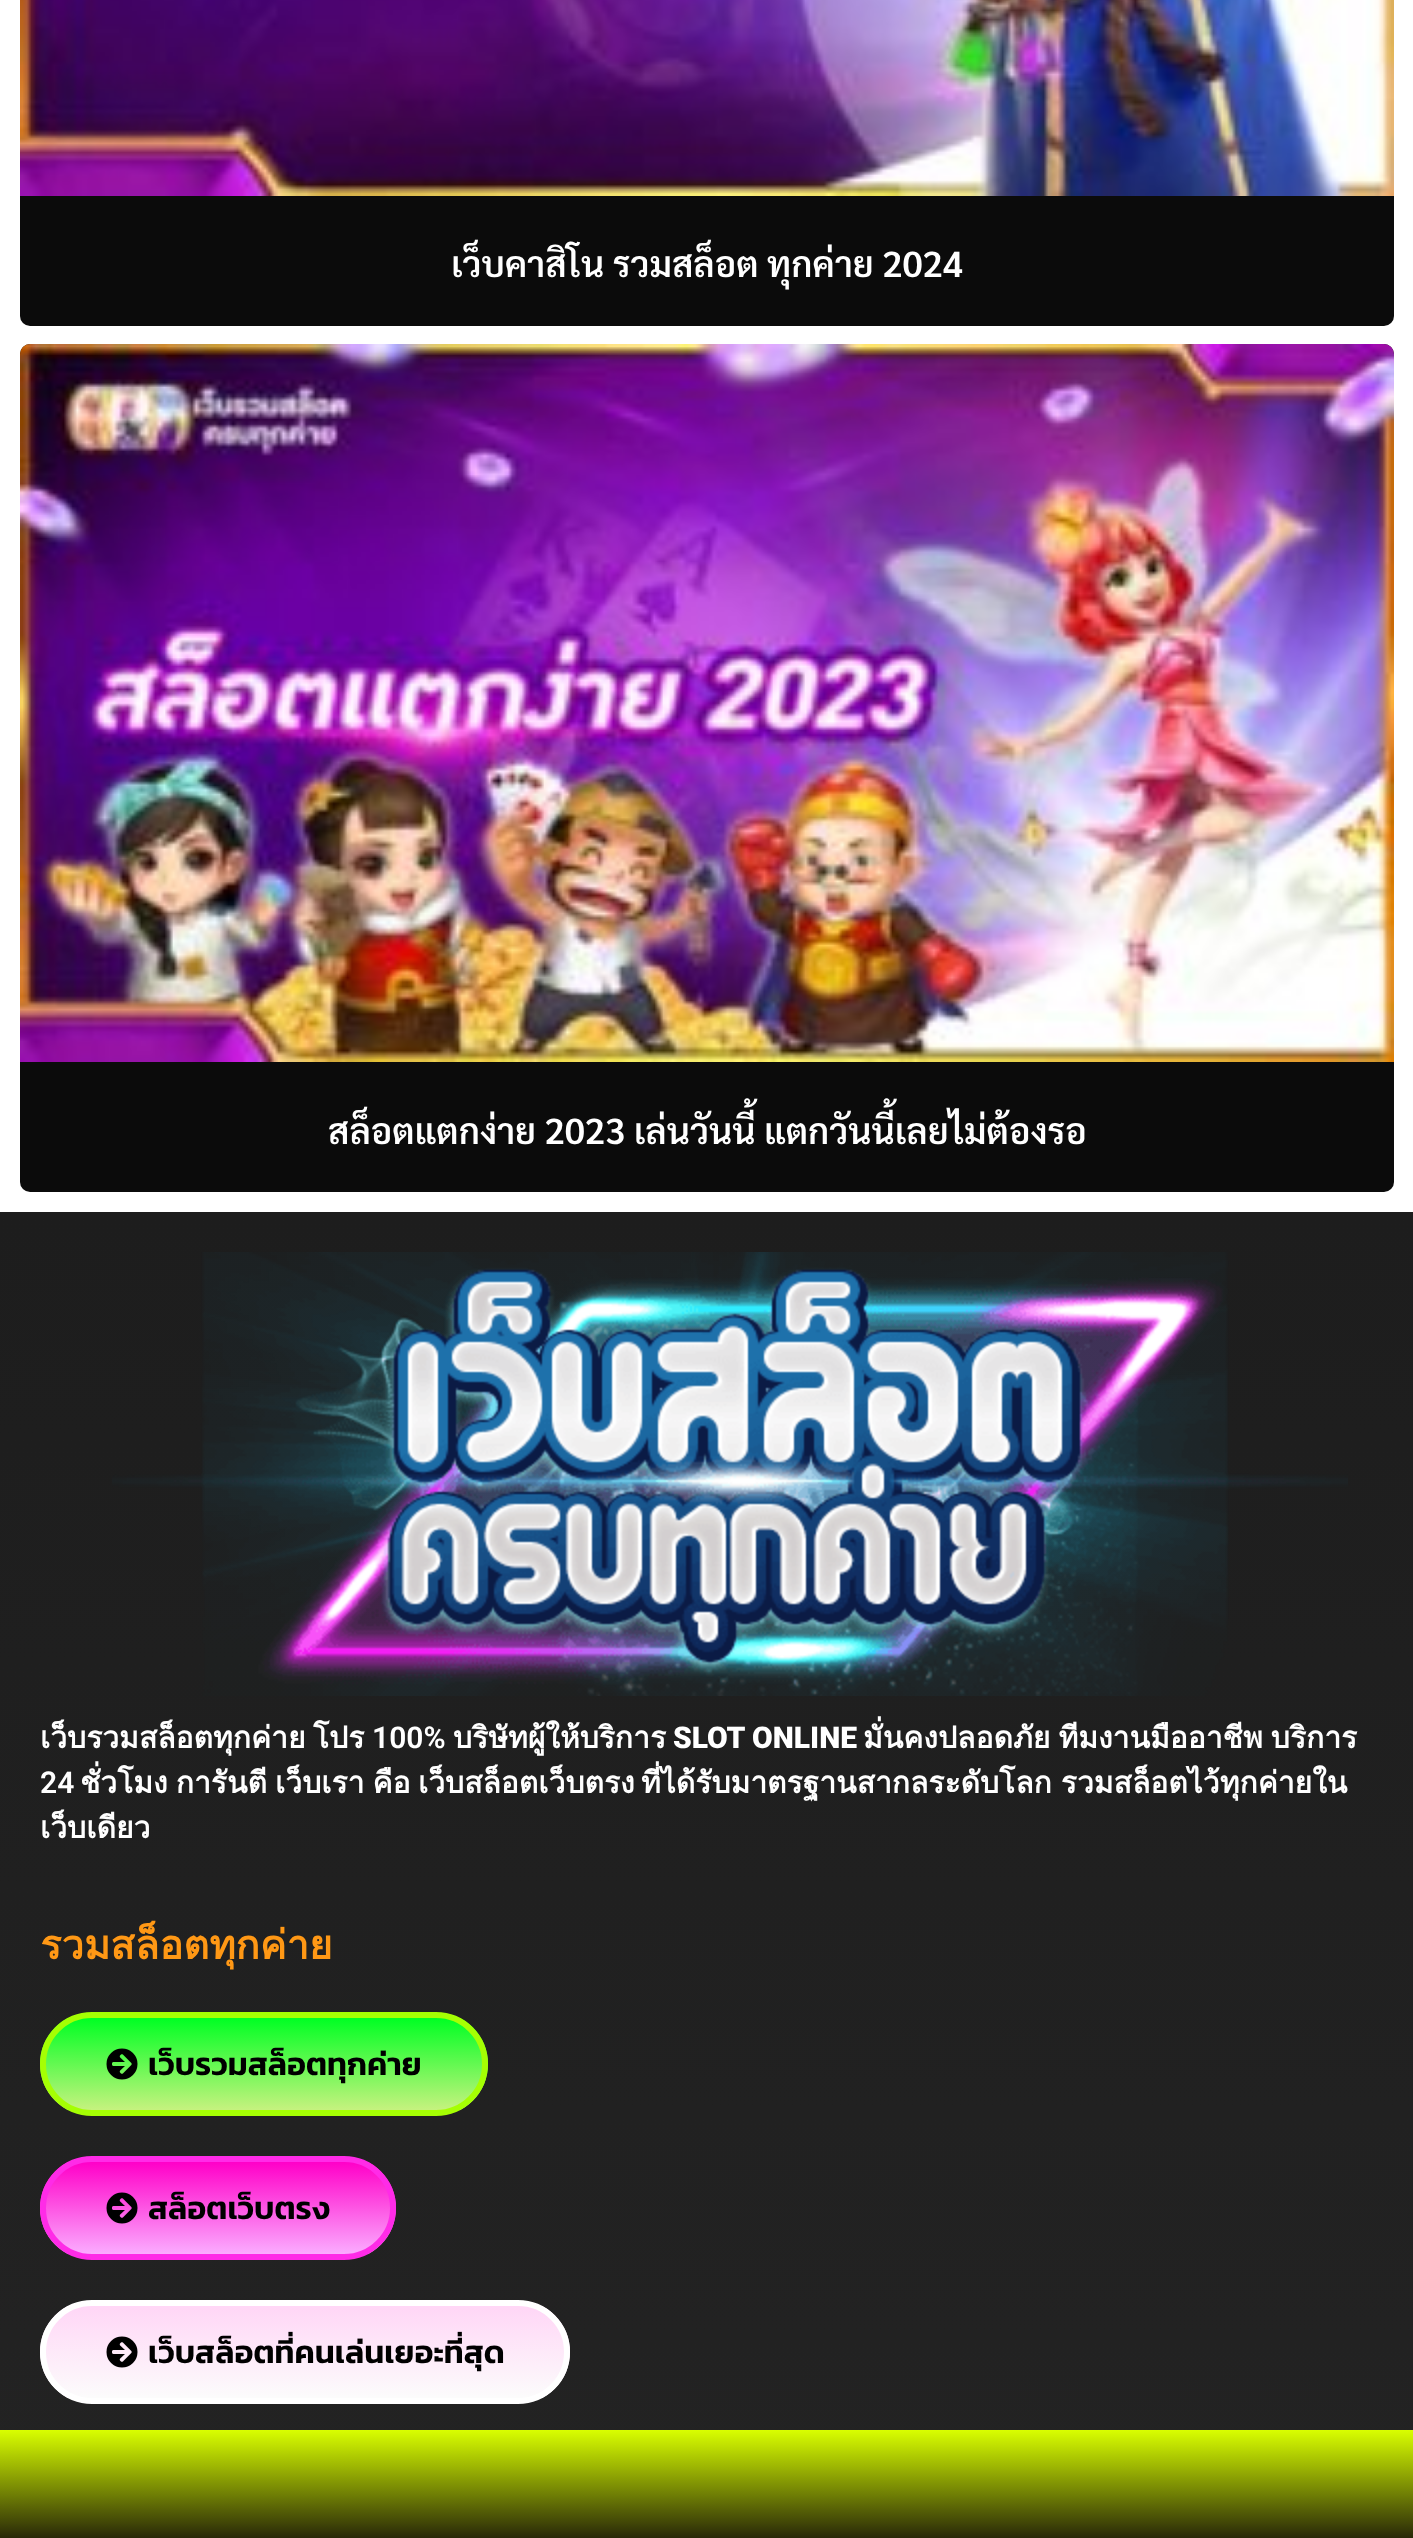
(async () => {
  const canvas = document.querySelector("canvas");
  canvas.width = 1413;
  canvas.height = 2538;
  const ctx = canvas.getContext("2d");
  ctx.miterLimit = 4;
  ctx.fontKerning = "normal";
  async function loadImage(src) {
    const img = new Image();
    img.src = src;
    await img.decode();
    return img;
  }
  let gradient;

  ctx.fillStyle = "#ffffff";
  ctx.fillRect(0, 0, 1413, 2538);
  ctx.fillStyle = "#0b0b0b";
  ctx.beginPath();
  ctx.roundRect(20, -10, 1374, 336, 10);
  ctx.fill();
  ctx.drawImage(await loadImage("img/1.png"), 20, 0, 1374, 196);
  ctx.beginPath();
  ctx.roundRect(20, 344, 1374, 848, 10);
  ctx.fill();
  ctx.drawImage(await loadImage("img/2.png"), 20, 344, 1374, 718);
  gradient = ctx.createLinearGradient(707, 1212, 707, 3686);
  gradient.addColorStop(0, "#1d1d1d");
  gradient.addColorStop(1, "#282828");
  ctx.fillStyle = gradient;
  ctx.fillRect(0, 1212, 1413, 1218);
  ctx.drawImage(await loadImage("img/3.png"), 112, 1252, 1236, 444);
  ctx.save();
  ctx.beginPath();
  ctx.roundRect(40, 2012, 448, 104, 52);
  ctx.clip();
  gradient = ctx.createLinearGradient(264, 2018, 264, 2110);
  gradient.addColorStop(0, "#00ff23");
  gradient.addColorStop(1, "#c6f27f");
  ctx.fillStyle = gradient;
  ctx.fillRect(40, 2018, 448, 92);
  ctx.restore();
  ctx.beginPath();
  ctx.roundRect(43, 2015, 442, 98, 49);
  ctx.strokeStyle = "#a5ff03";
  ctx.lineWidth = 6;
  ctx.stroke();
  ctx.drawImage(await loadImage("img/4.png"), 106, 2048, 32, 32);
  ctx.save();
  ctx.beginPath();
  ctx.roundRect(40, 2156, 356, 104, 52);
  ctx.clip();
  gradient = ctx.createLinearGradient(218, 2162, 218, 2254);
  gradient.addColorStop(0, "#ff00c8");
  gradient.addColorStop(1, "#fbacff");
  ctx.fillStyle = gradient;
  ctx.fillRect(40, 2162, 356, 92);
  ctx.restore();
  ctx.beginPath();
  ctx.roundRect(43, 2159, 350, 98, 49);
  ctx.strokeStyle = "#ff2be7";
  ctx.stroke();
  ctx.drawImage(await loadImage("img/5.png"), 106, 2192, 32, 32);
  ctx.save();
  ctx.beginPath();
  ctx.roundRect(40, 2300, 530, 104, 52);
  ctx.clip();
  gradient = ctx.createLinearGradient(305, 2306, 305, 2398);
  gradient.addColorStop(0, "#ffd6f6");
  gradient.addColorStop(1, "#fcfcfc");
  ctx.fillStyle = gradient;
  ctx.fillRect(40, 2306, 530, 92);
  ctx.restore();
  ctx.beginPath();
  ctx.roundRect(43, 2303, 524, 98, 49);
  ctx.strokeStyle = "#ffffff";
  ctx.stroke();
  ctx.drawImage(await loadImage("img/6.png"), 106, 2336, 32, 32);
  gradient = ctx.createLinearGradient(707, 2430, 707, 2538);
  gradient.addColorStop(0, "#d9ff00");
  gradient.addColorStop(1, "#282808");
  ctx.fillStyle = gradient;
  ctx.fillRect(0, 2430, 1413, 108);
  ctx.font = "600 36px Sarabun";
  ctx.fillStyle = "#ffffff";
  ctx.fillText("เว็บคาสิโน รวมสล็อต ทุกค่าย 2024", 451, 277);
  ctx.fillText("สล็อตแตกง่าย 2023 เล่นวันนี้ แตกวันนี้เลยไม่ต้องรอ", 328, 1144);
  ctx.font = "bold 30px Loma";
  ctx.fillText("เว็บรวมสล็อตทุกค่าย", 40, 1748);
  ctx.fillText("โปร", 313, 1748);
  ctx.font = "600 30px Roboto";
  ctx.fillText("100%", 372, 1748);
  ctx.font = "bold 30px Loma";
  ctx.fillText("บริษัทผู้ให้บริการ", 453, 1748);
  ctx.font = "900 30px Roboto";
  ctx.fillText("SLOT ONLINE", 673, 1748);
  ctx.wordSpacing = "-2px";
  ctx.font = "bold 30px Loma";
  ctx.fillText("มั่นคงปลอดภัย ทีมงานมืออาชีพ บริการ", 863, 1748);
  ctx.wordSpacing = "0px";
  ctx.font = "600 30px Roboto";
  ctx.fillText("24", 40, 1793);
  ctx.wordSpacing = "-2px";
  ctx.font = "bold 30px Loma";
  ctx.fillText("ชั่วโมง การันตี เว็บเรา คือ", 80, 1793);
  ctx.wordSpacing = "0px";
  ctx.fillText("เว็บสล็อตเว็บตรง", 418, 1793);
  ctx.wordSpacing = "-1px";
  ctx.fillText("ที่ได้รับมาตรฐานสากลระดับโลก รวมสล็อตไว้ทุกค่ายใน", 641, 1793);
  ctx.wordSpacing = "0px";
  ctx.fillText("เว็บเดียว", 40, 1838);
  ctx.font = "bold 40px Loma";
  ctx.fillStyle = "#ff9815";
  ctx.fillText("รวมสล็อตทุกค่าย", 40, 1959);
  ctx.font = "600 32px Kanit";
  ctx.fillStyle = "#000000";
  for (const [text, x, y] of [
    ["เว็บรวมสล็อตทุกค่าย", 148, 2075],
    ["สล็อตเว็บตรง", 148, 2219],
    ["เว็บสล็อตที่คนเล่นเยอะที่สุด", 148, 2363],
  ]) {
    ctx.fillText(text, x, y);
  }
})();
